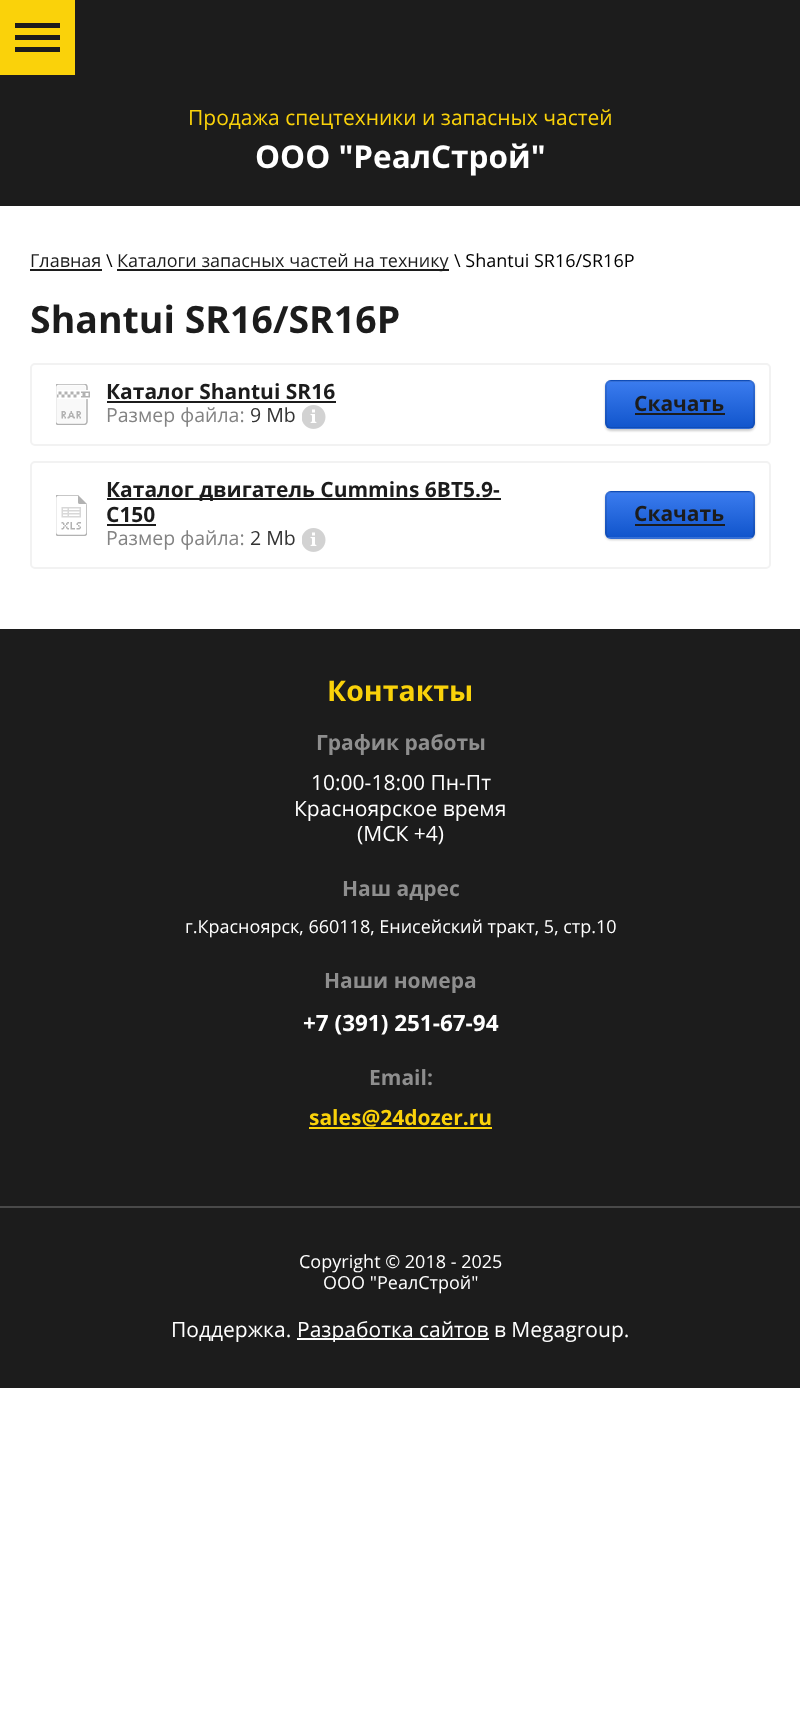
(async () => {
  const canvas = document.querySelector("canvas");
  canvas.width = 800;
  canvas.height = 1721;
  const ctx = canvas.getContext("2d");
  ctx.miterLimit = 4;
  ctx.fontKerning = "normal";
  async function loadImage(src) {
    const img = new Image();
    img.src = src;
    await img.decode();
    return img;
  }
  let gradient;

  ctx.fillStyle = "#ffffff";
  ctx.fillRect(0, 0, 800, 1721);
  for (const [x, y, w, h, color] of [
    [0, 0, 800, 206, "#1c1c1c"],
    [0, 0, 75, 75, "#fad20a"],
    [15, 23, 45, 5, "#1c1c1c"],
    [15, 35, 45, 5, "#1c1c1c"],
    [15, 47, 45, 5, "#1c1c1c"],
    [30, 269, 72, 2, "#1c1c1c"],
    [117, 269, 332, 2, "#1c1c1c"],
  ]) {
    ctx.fillStyle = color;
    ctx.fillRect(x, y, w, h);
  }
  ctx.drawImage(await loadImage("img/1.png"), 56, 384, 34, 41);
  ctx.beginPath();
  ctx.roundRect(31, 364, 739, 81, 4);
  ctx.strokeStyle = "#f2f2f2";
  ctx.lineWidth = 2;
  ctx.stroke();
  ctx.fillRect(107, 401, 229, 2);
  ctx.drawImage(await loadImage("img/2.png"), 302, 405, 24, 24);
  ctx.fillStyle = "rgba(0, 0, 0, 0.2)";
  ctx.filter = "blur(1px)";
  ctx.beginPath();
  ctx.roundRect(605, 381, 150, 50, 6);
  ctx.fill();
  ctx.filter = "none";
  ctx.save();
  ctx.beginPath();
  ctx.roundRect(605, 380, 150, 49, 6);
  ctx.clip();
  gradient = ctx.createLinearGradient(680, 335, 680, 381);
  gradient.addColorStop(0, "#3b7cef");
  gradient.addColorStop(1, "#1155cc");
  ctx.fillStyle = gradient;
  ctx.fillRect(605, 380, 150, 1);
  gradient = ctx.createLinearGradient(680, 381, 680, 428);
  gradient.addColorStop(0, "#3b7cef");
  gradient.addColorStop(1, "#1155cc");
  ctx.fillStyle = gradient;
  ctx.fillRect(605, 381, 150, 47);
  gradient = ctx.createLinearGradient(680, 428, 680, 474);
  gradient.addColorStop(0, "#3b7cef");
  gradient.addColorStop(1, "#1155cc");
  ctx.fillStyle = gradient;
  ctx.fillRect(605, 428, 150, 1);
  ctx.restore();
  ctx.beginPath();
  ctx.roundRect(606, 381, 148, 47, 5);
  ctx.strokeStyle = "rgba(0, 0, 0, 0.1)";
  ctx.stroke();
  ctx.fillStyle = "#1c1c1c";
  ctx.fillRect(635, 413, 90, 2);
  ctx.drawImage(await loadImage("img/3.png"), 56, 495, 31, 41);
  ctx.beginPath();
  ctx.roundRect(31, 462, 739, 106, 4);
  ctx.strokeStyle = "#f2f2f2";
  ctx.stroke();
  ctx.fillRect(107, 498, 394, 2);
  ctx.fillRect(107, 524, 49, 2);
  ctx.drawImage(await loadImage("img/2.png"), 302, 528, 24, 24);
  ctx.fillStyle = "rgba(0, 0, 0, 0.2)";
  ctx.filter = "blur(1px)";
  ctx.beginPath();
  ctx.roundRect(605, 492, 150, 48, 6);
  ctx.fill();
  ctx.filter = "none";
  ctx.save();
  ctx.beginPath();
  ctx.roundRect(605, 491, 150, 48, 6);
  ctx.clip();
  gradient = ctx.createLinearGradient(680, 447, 680, 492);
  gradient.addColorStop(0, "#3b7cef");
  gradient.addColorStop(1, "#1155cc");
  ctx.fillStyle = gradient;
  ctx.fillRect(605, 491, 150, 1);
  gradient = ctx.createLinearGradient(680, 492, 680, 537);
  gradient.addColorStop(0, "#3b7cef");
  gradient.addColorStop(1, "#1155cc");
  ctx.fillStyle = gradient;
  ctx.fillRect(605, 492, 150, 45);
  gradient = ctx.createLinearGradient(680, 537, 680, 582);
  gradient.addColorStop(0, "#3b7cef");
  gradient.addColorStop(1, "#1155cc");
  ctx.fillStyle = gradient;
  ctx.fillRect(605, 537, 150, 2);
  ctx.restore();
  ctx.beginPath();
  ctx.roundRect(606, 492, 148, 46, 5);
  ctx.strokeStyle = "rgba(0, 0, 0, 0.1)";
  ctx.stroke();
  for (const [x, y, w, h, color] of [
    [635, 524, 90, 2, "#1c1c1c"],
    [0, 629, 800, 759, "#1c1c1c"],
    [309, 1127, 183, 2, "#fad20a"],
    [0, 1206, 800, 2, "#494949"],
    [297, 1338, 192, 2, "#ffffff"],
  ]) {
    ctx.fillStyle = color;
    ctx.fillRect(x, y, w, h);
  }
  ctx.font = "21px Open Sans";
  ctx.fillStyle = "#fad20a";
  ctx.fillText("Продажа спецтехники и запасных частей", 188, 125);
  ctx.font = "bold 31.5px Open Sans";
  ctx.fillStyle = "#ffffff";
  ctx.fillText("ООО \"РеалСтрой\"", 255, 168);
  ctx.font = "18px Open Sans";
  ctx.fillStyle = "#1c1c1c";
  ctx.fillText("Главная", 30, 267);
  ctx.fillStyle = "#000000";
  ctx.fillText("\\", 106, 267);
  ctx.fillStyle = "#1c1c1c";
  ctx.fillText("Каталоги запасных частей на технику", 117, 267);
  ctx.fillStyle = "#000000";
  ctx.fillText("\\ Shantui SR16/SR16P", 454, 267);
  ctx.font = "bold 37.5px Open Sans";
  ctx.fillStyle = "#1c1c1c";
  ctx.fillText("Shantui SR16/SR16P", 30, 333);
  ctx.font = "bold 21px Open Sans";
  ctx.fillText("Каталог Shantui SR16", 106, 399);
  ctx.font = "19.5px Open Sans";
  ctx.fillStyle = "#838383";
  ctx.fillText("Размер файла:", 106, 422);
  ctx.fillStyle = "#333333";
  ctx.fillText("9 Mb", 250, 422);
  ctx.font = "bold 21px Open Sans";
  ctx.fillStyle = "#1c1c1c";
  for (const [text, x, y] of [
    ["Скачать", 634, 411],
    ["Каталог двигатель Cummins 6BT5.9-", 106, 497],
    ["C150", 106, 522],
  ]) {
    ctx.fillText(text, x, y);
  }
  ctx.font = "19.5px Open Sans";
  ctx.fillStyle = "#838383";
  ctx.fillText("Размер файла:", 106, 545);
  ctx.fillStyle = "#333333";
  ctx.fillText("2 Mb", 250, 545);
  ctx.font = "bold 21px Open Sans";
  ctx.fillStyle = "#1c1c1c";
  ctx.fillText("Скачать", 634, 521);
  ctx.font = "bold 28.5px Open Sans";
  ctx.fillStyle = "#fad20a";
  ctx.fillText("Контакты", 327, 701);
  ctx.font = "bold 21px Open Sans";
  ctx.fillStyle = "#8e8e8e";
  ctx.fillText("График работы", 316, 750);
  ctx.font = "21px Open Sans";
  ctx.fillStyle = "#ffffff";
  for (const [text, x, y] of [
    ["10:00-18:00 Пн-Пт", 311, 790],
    ["Красноярское время", 294, 816],
    ["(МСК +4)", 357, 841],
  ]) {
    ctx.fillText(text, x, y);
  }
  ctx.font = "bold 21px Open Sans";
  ctx.fillStyle = "#8e8e8e";
  ctx.fillText("Наш адрес", 342, 896);
  ctx.font = "18px Open Sans";
  ctx.fillStyle = "#ffffff";
  ctx.fillText("г.Красноярск, 660118, Енисейский тракт, 5, стр.10", 185, 933);
  ctx.font = "bold 21px Open Sans";
  ctx.fillStyle = "#8e8e8e";
  ctx.fillText("Наши номера", 324, 988);
  ctx.font = "bold 22.5px Open Sans";
  ctx.fillStyle = "#ffffff";
  ctx.fillText("+7 (391) 251-67-94", 303, 1031);
  ctx.font = "bold 21px Open Sans";
  ctx.fillStyle = "#8e8e8e";
  ctx.fillText("Email:", 369, 1085);
  ctx.fillStyle = "#fad20a";
  ctx.fillText("sales@24dozer.ru", 309, 1125);
  ctx.font = "18px Open Sans";
  ctx.fillStyle = "#ffffff";
  ctx.fillText("Copyright © 2018 - 2025", 299, 1268);
  ctx.fillText("ООО \"РеалСтрой\"", 323, 1289);
  ctx.font = "21px Open Sans";
  ctx.fillText("Поддержка.", 171, 1337);
  ctx.fillText("Разработка сайтов в Megagroup.", 297, 1337);
})();
